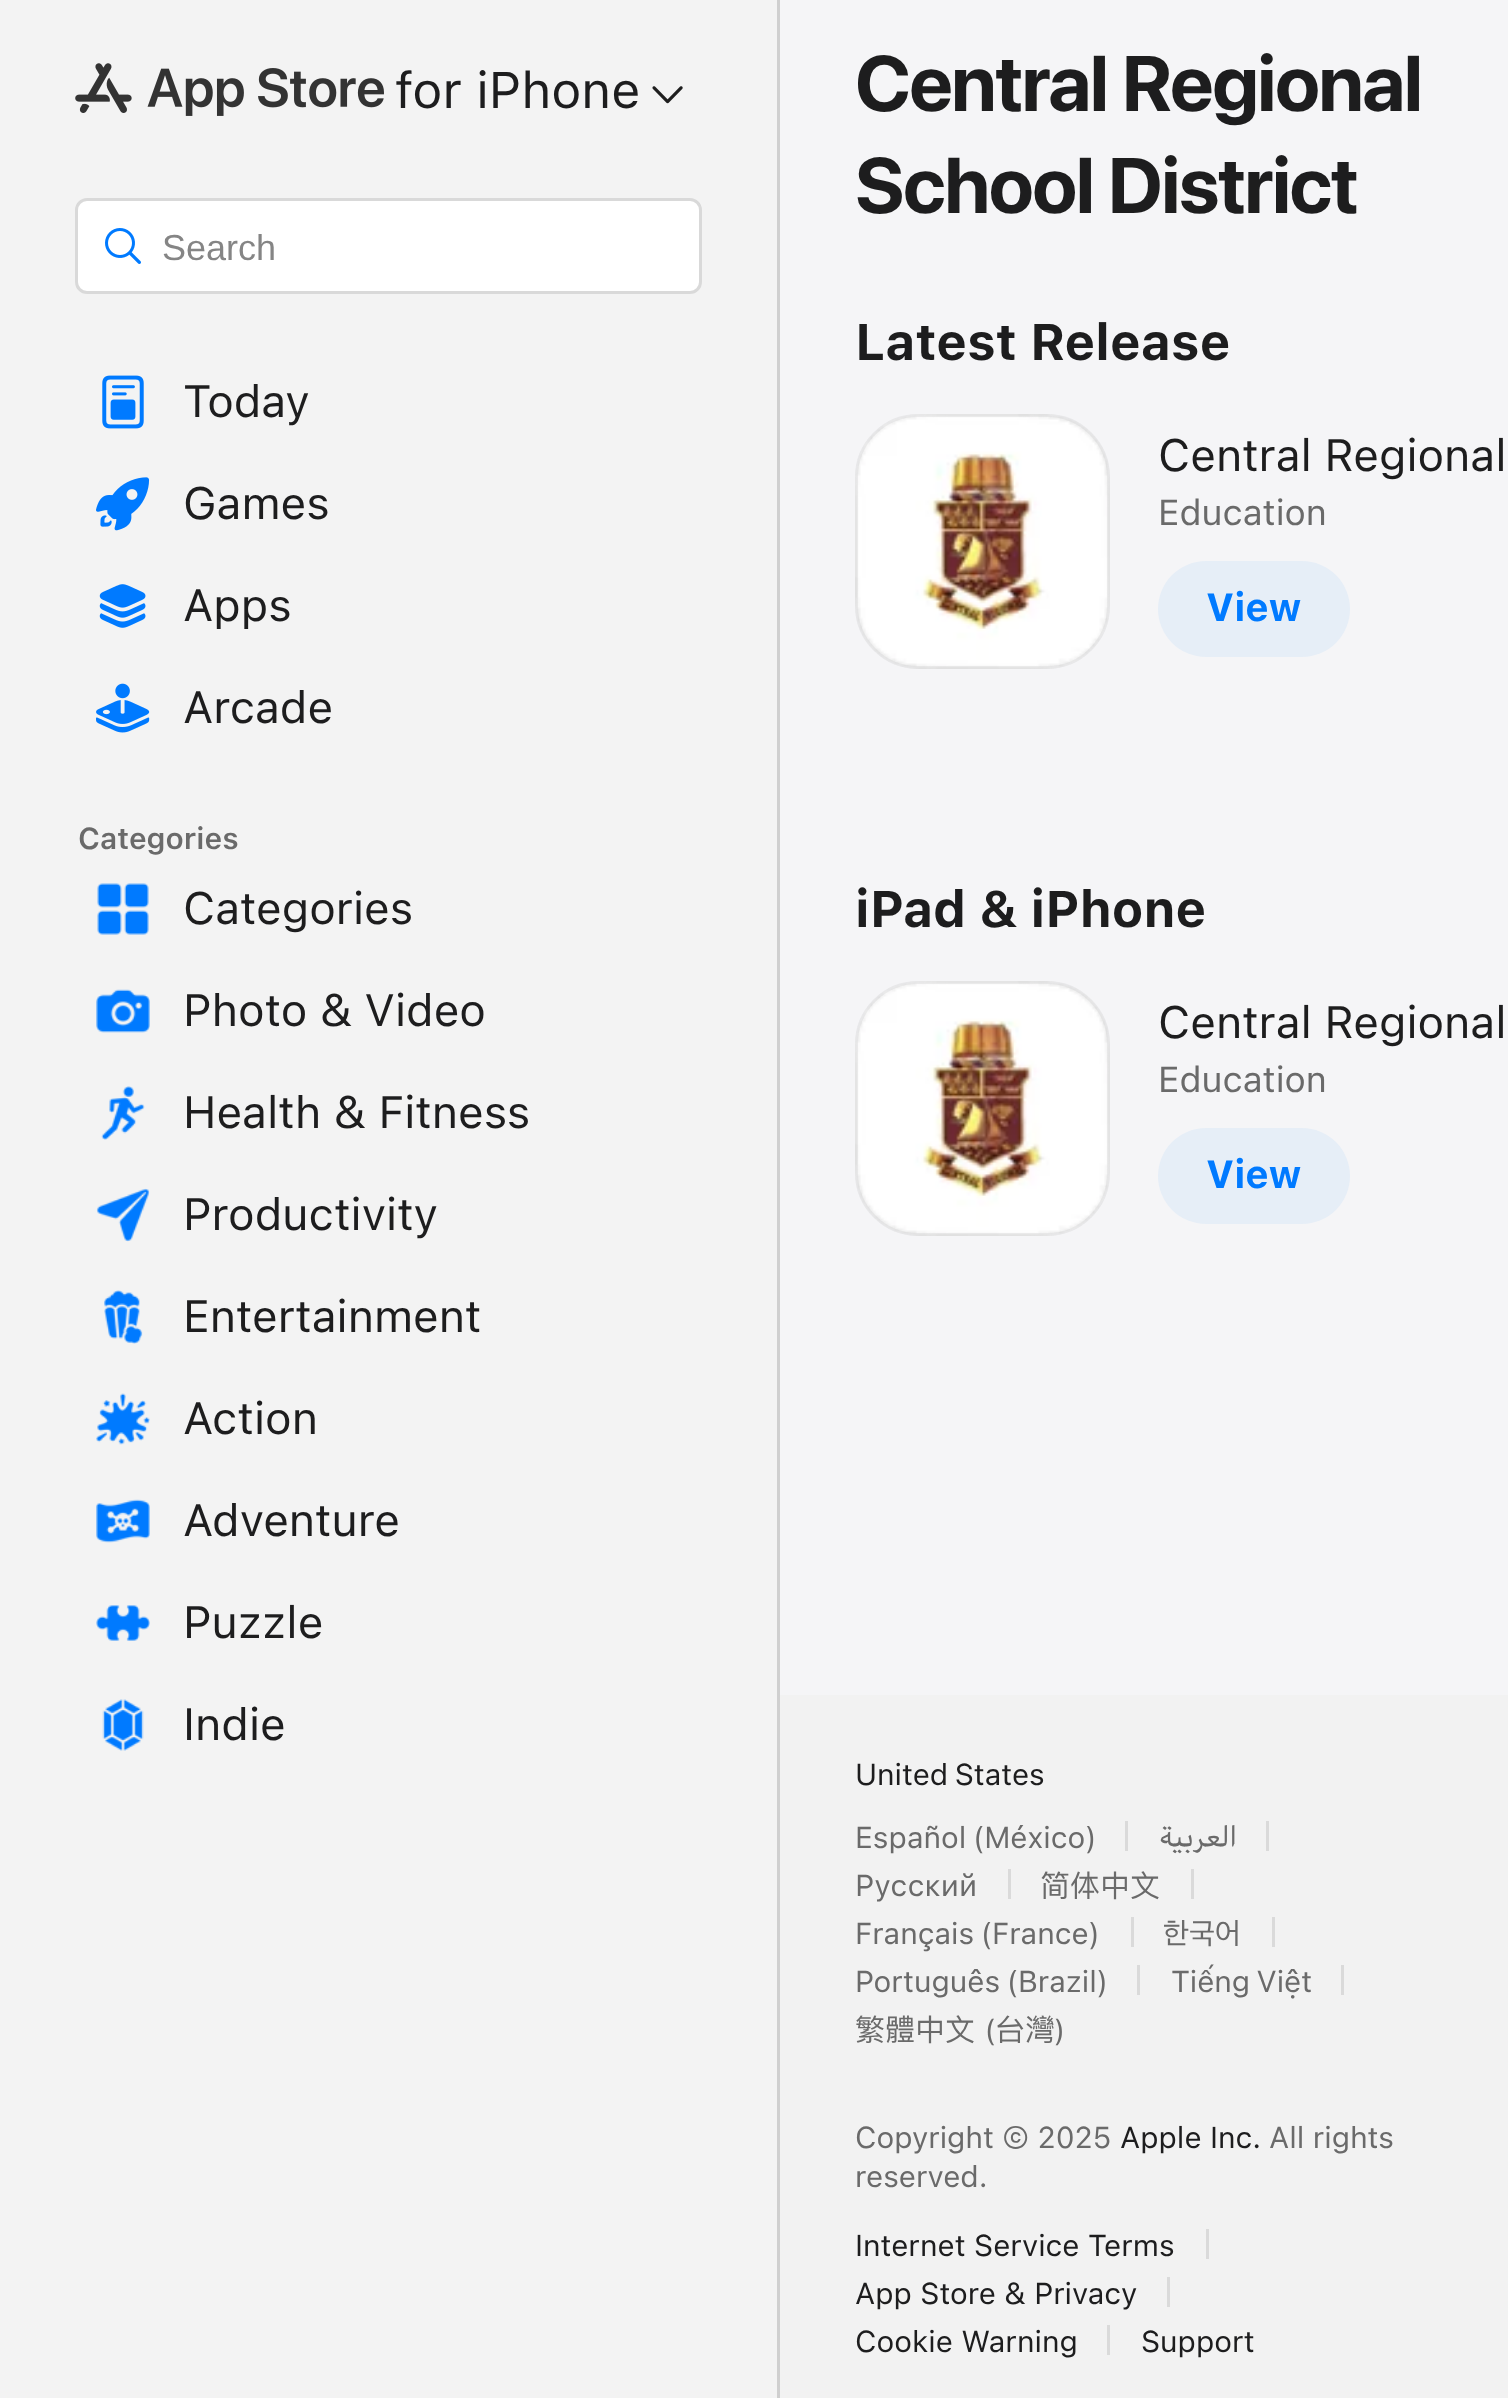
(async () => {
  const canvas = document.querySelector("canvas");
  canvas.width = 1508;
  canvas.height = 2398;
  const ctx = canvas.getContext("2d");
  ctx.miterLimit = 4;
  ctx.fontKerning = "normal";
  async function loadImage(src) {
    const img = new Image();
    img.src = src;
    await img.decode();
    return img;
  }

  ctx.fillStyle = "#f5f5f7";
  ctx.fillRect(0, 0, 1508, 2398);
  ctx.fillStyle = "#f3f3f3";
  ctx.fillRect(0, 0, 777, 2398);
  ctx.fillStyle = "#cfcfcf";
  ctx.fillRect(777, 0, 3, 2398);
  ctx.drawImage(await loadImage("img/1.png"), 75, 63, 309, 53);
  ctx.drawImage(await loadImage("img/2.png"), 652, 86, 31, 18);
  ctx.fillStyle = "#ffffff";
  ctx.beginPath();
  ctx.roundRect(75, 198, 627, 96, 12);
  ctx.fill();
  ctx.beginPath();
  ctx.roundRect(76.5, 199.5, 624, 93, 10.5);
  ctx.strokeStyle = "rgba(0, 0, 0, 0.15)";
  ctx.lineWidth = 3;
  ctx.stroke();
  ctx.drawImage(await loadImage("img/3.png"), 105, 228, 36, 36);
  ctx.drawImage(await loadImage("img/4.png"), 102, 375, 42, 54);
  ctx.drawImage(await loadImage("img/5.png"), 96, 477, 54, 54);
  ctx.drawImage(await loadImage("img/6.png"), 99, 584, 47, 44);
  ctx.drawImage(await loadImage("img/7.png"), 96, 683, 54, 50);
  ctx.drawImage(await loadImage("img/8.png"), 97, 883, 52, 52);
  ctx.drawImage(await loadImage("img/9.png"), 96, 989, 54, 44);
  ctx.drawImage(await loadImage("img/10.png"), 101, 1086, 44, 54);
  ctx.drawImage(await loadImage("img/11.png"), 96, 1188, 54, 54);
  ctx.drawImage(await loadImage("img/12.png"), 104, 1290, 39, 54);
  ctx.drawImage(await loadImage("img/13.png"), 96, 1393, 54, 52);
  ctx.drawImage(await loadImage("img/14.png"), 96, 1499, 54, 44);
  ctx.drawImage(await loadImage("img/15.png"), 96, 1605, 54, 36);
  ctx.drawImage(await loadImage("img/16.png"), 102, 1699, 42, 52);
  ctx.drawImage(await loadImage("img/17.png"), 855, 414, 255, 255);
  ctx.beginPath();
  ctx.roundRect(856.5, 415.5, 252, 252, 61.5);
  ctx.strokeStyle = "rgba(128, 128, 128, 0.1)";
  ctx.stroke();
  ctx.fillStyle = "#e6eef7";
  ctx.beginPath();
  ctx.roundRect(1158, 561, 192, 96, 48);
  ctx.fill();
  ctx.drawImage(await loadImage("img/18.png"), 855, 981, 255, 255);
  ctx.beginPath();
  ctx.roundRect(856.5, 982.5, 252, 252, 61.5);
  ctx.stroke();
  ctx.beginPath();
  ctx.roundRect(1158, 1128, 192, 96, 48);
  ctx.fill();
  for (const [x, y, w, h, color] of [
    [780, 1695, 728, 703, "#f2f2f2"],
    [1125, 1821, 3, 30, "#dadada"],
    [1266, 1821, 3, 30, "#dadada"],
    [1008, 1869, 3, 30, "#dadada"],
    [1191, 1869, 3, 30, "#dadada"],
    [1131, 1917, 3, 30, "#dadada"],
    [1272, 1917, 3, 30, "#dadada"],
    [1137, 1965, 3, 30, "#dadada"],
    [1341, 1965, 3, 30, "#dadada"],
    [1206, 2229, 3, 30, "#dadada"],
    [1167, 2277, 3, 30, "#dadada"],
    [1107, 2325, 3, 30, "#dadada"],
  ]) {
    ctx.fillStyle = color;
    ctx.fillRect(x, y, w, h);
  }
  ctx.font = "51px SF";
  ctx.fillStyle = "#1d1d1e";
  ctx.fillText("for iPhone", 395, 108);
  ctx.font = "36px Liberation Sans";
  ctx.fillStyle = "#858585";
  ctx.fillText("Search", 162, 260);
  ctx.font = "45px SF";
  ctx.fillStyle = "#1d1d1e";
  for (const [text, x, y] of [
    ["Today", 183, 417],
    ["Games", 183, 519],
    ["Apps", 183, 621],
    ["Arcade", 183, 723],
  ]) {
    ctx.fillText(text, x, y);
  }
  ctx.font = "600 30px SF";
  ctx.fillStyle = "#6a6a6a";
  ctx.fillText("Categories", 78, 849);
  ctx.font = "45px SF";
  ctx.fillStyle = "#1d1d1e";
  for (const [text, x, y] of [
    ["Categories", 183, 924],
    ["Photo & Video", 183, 1026],
    ["Health & Fitness", 183, 1128],
    ["Productivity", 183, 1230],
    ["Entertainment", 183, 1332],
    ["Action", 183, 1434],
    ["Adventure", 183, 1536],
    ["Puzzle", 183, 1638],
    ["Indie", 183, 1740],
  ]) {
    ctx.fillText(text, x, y);
  }
  ctx.letterSpacing = "-1.5px";
  ctx.font = "bold 78px 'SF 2'";
  ctx.fillText("Central Regional", 855, 111);
  ctx.fillText("School District", 855, 213);
  ctx.letterSpacing = "0px";
  ctx.font = "bold 51px SF";
  ctx.fillText("Latest Release", 855, 360);
  ctx.font = "45px SF";
  ctx.fillText("Central Regional", 1158, 471);
  ctx.font = "36px SF";
  ctx.fillStyle = "#6a6a6a";
  ctx.fillText("Education", 1158, 525);
  ctx.font = "bold 39px SF";
  ctx.fillStyle = "#007aff";
  ctx.fillText("View", 1206, 621);
  ctx.font = "bold 51px SF";
  ctx.fillStyle = "#1d1d1e";
  ctx.fillText("iPad & iPhone", 855, 927);
  ctx.font = "45px SF";
  ctx.fillText("Central Regional", 1158, 1038);
  ctx.font = "36px SF";
  ctx.fillStyle = "#6a6a6a";
  ctx.fillText("Education", 1158, 1092);
  ctx.font = "bold 39px SF";
  ctx.fillStyle = "#007aff";
  ctx.fillText("View", 1206, 1188);
  ctx.wordSpacing = "-2px";
  ctx.font = "30px SF";
  ctx.fillStyle = "#1d1d1e";
  ctx.fillText("United States", 855, 1785);
  ctx.fillStyle = "#6a6a6a";
  ctx.fillText("Español (México)", 855, 1848);
  ctx.wordSpacing = "0px";
  ctx.direction = "rtl";
  ctx.font = "30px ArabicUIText";
  ctx.fillText("العربية", 1237, 1848);
  ctx.direction = "ltr";
  ctx.font = "30px SF";
  ctx.fillText("Русский", 855, 1896);
  ctx.font = "30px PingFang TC";
  ctx.fillText("简体中文", 1040, 1896);
  ctx.wordSpacing = "-2px";
  ctx.font = "30px SF";
  ctx.fillText("Français (France)", 855, 1944);
  ctx.wordSpacing = "0px";
  ctx.font = "30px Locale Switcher";
  ctx.fillText("한국어", 1163, 1944);
  ctx.wordSpacing = "-2px";
  ctx.font = "30px SF";
  ctx.fillText("Português (Brazil)", 855, 1992);
  ctx.fillText("Tiếng Việt", 1171, 1992);
  ctx.wordSpacing = "0px";
  ctx.font = "30px PingFang TC";
  ctx.fillText("繁體中文", 855, 2040);
  ctx.font = "30px 'SF 2'";
  ctx.fillText("(", 985, 2040);
  ctx.font = "30px PingFang TC";
  ctx.fillText("台灣", 995, 2040);
  ctx.font = "30px 'SF 2'";
  ctx.fillText(")", 1055, 2040);
  ctx.font = "30px SF";
  ctx.fillText("Copyright © 2025", 855, 2148);
  ctx.fillStyle = "#1d1d1e";
  ctx.fillText("Apple Inc.", 1120, 2148);
  ctx.fillStyle = "#6a6a6a";
  ctx.fillText("All rights", 1269, 2148);
  ctx.fillText("reserved.", 855, 2187);
  ctx.fillStyle = "#1d1d1e";
  for (const [text, x, y] of [
    ["Internet Service Terms", 855, 2256],
    ["App Store & Privacy", 855, 2304],
    ["Cookie Warning", 855, 2352],
    ["Support", 1141, 2352],
  ]) {
    ctx.fillText(text, x, y);
  }
})();
